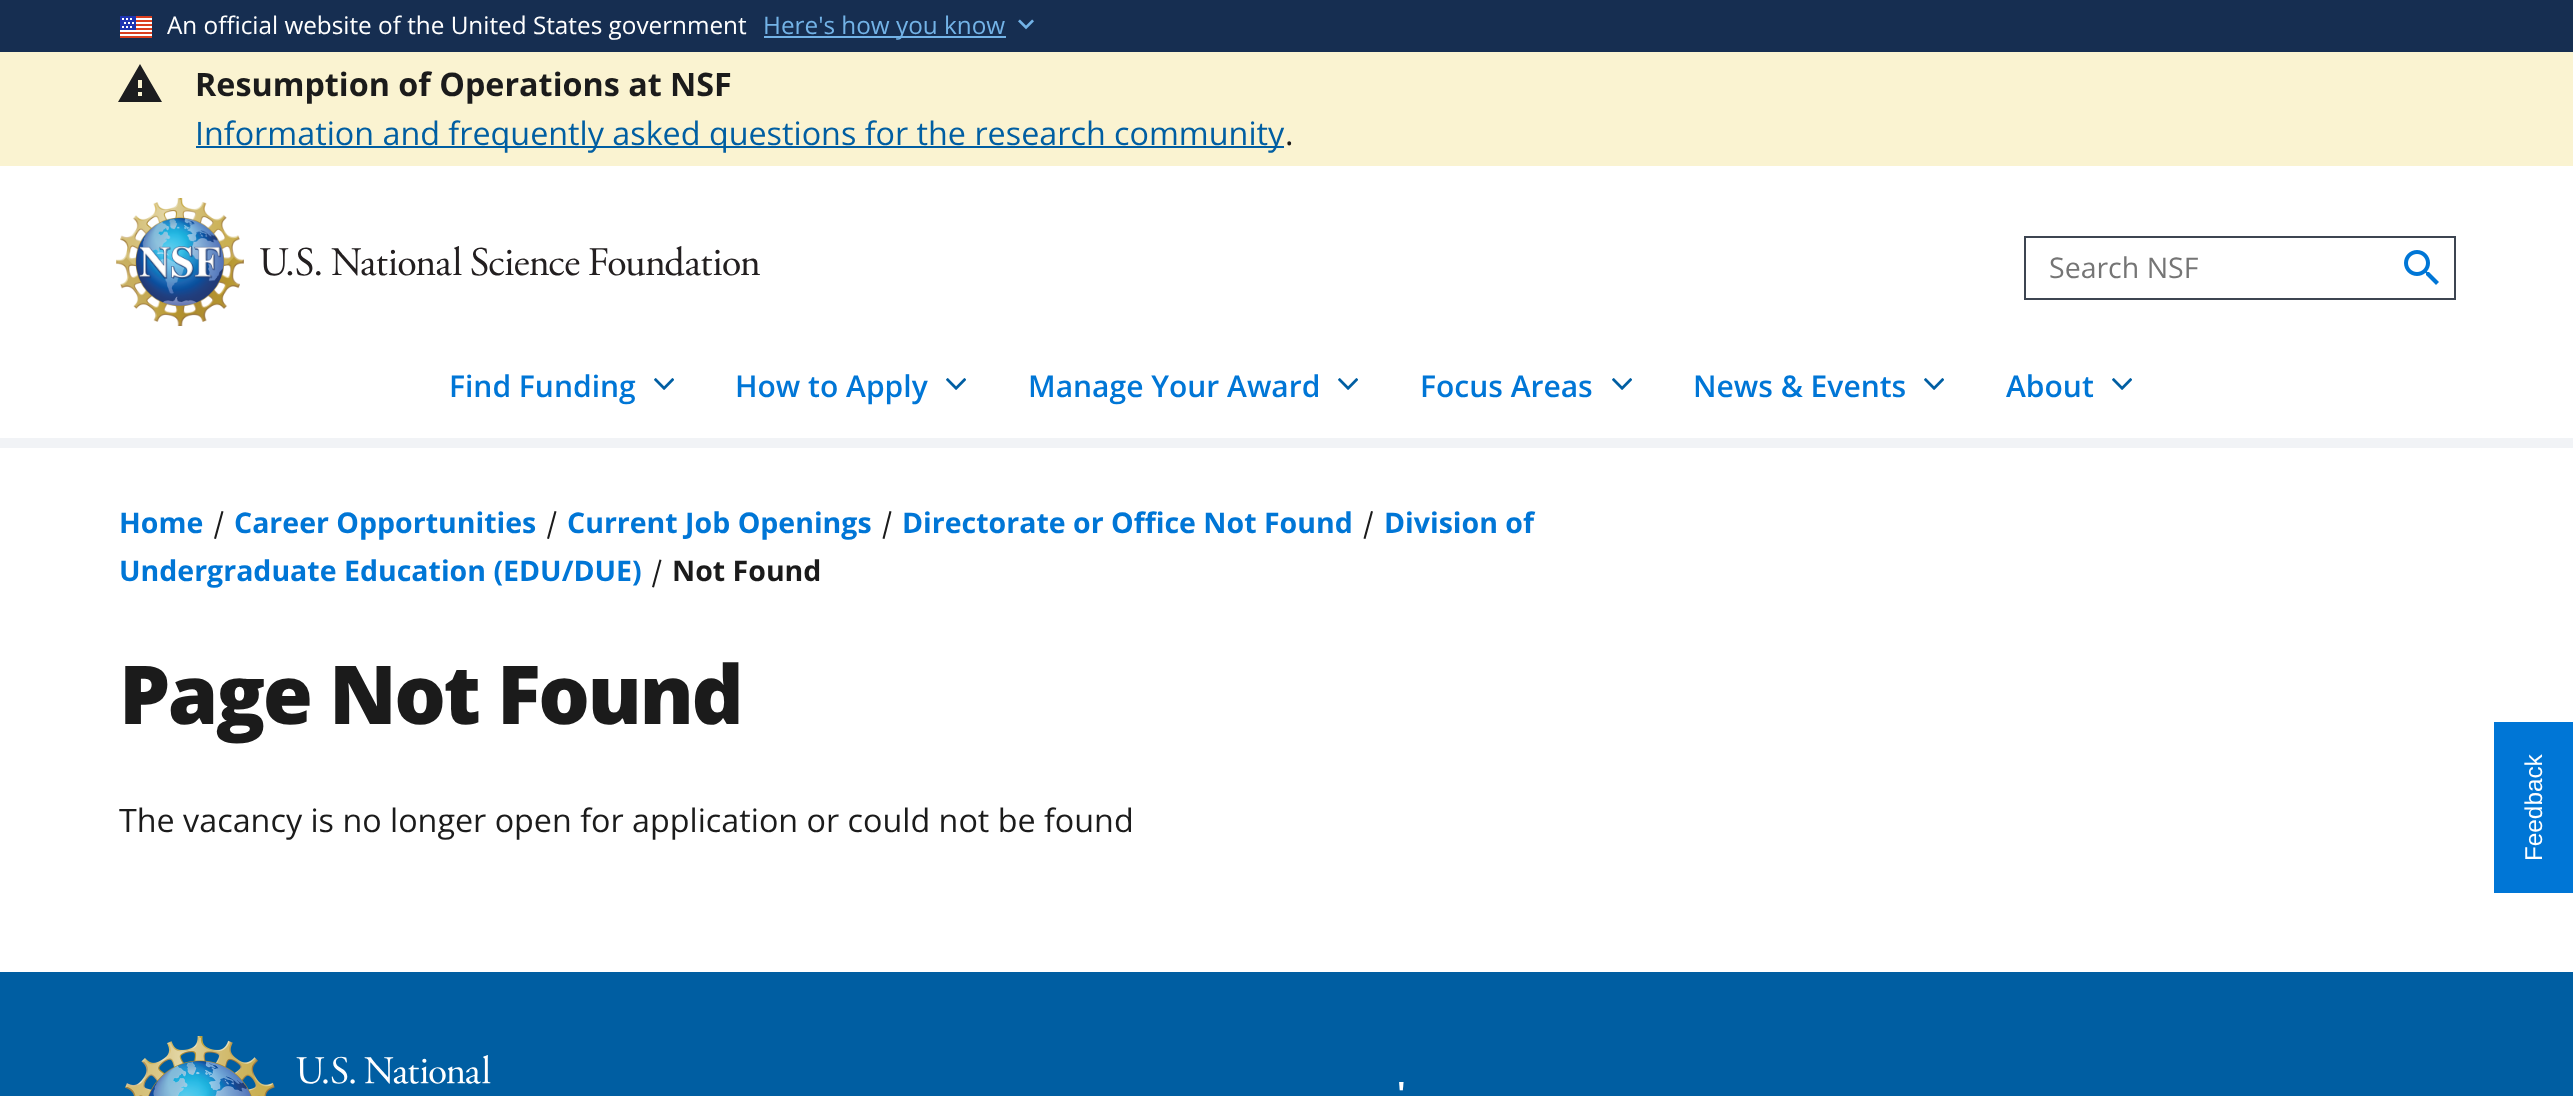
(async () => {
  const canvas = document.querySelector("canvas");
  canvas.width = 2573;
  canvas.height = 1096;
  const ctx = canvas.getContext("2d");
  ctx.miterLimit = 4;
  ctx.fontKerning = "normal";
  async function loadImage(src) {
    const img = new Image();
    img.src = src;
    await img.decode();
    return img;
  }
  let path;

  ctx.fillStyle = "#ffffff";
  ctx.fillRect(0, 0, 2573, 1096);
  ctx.fillStyle = "#162e51";
  ctx.fillRect(0, 0, 2573, 52);
  ctx.drawImage(await loadImage("img/1.png"), 120, 16, 32, 22);
  ctx.fillStyle = "#73b3e7";
  ctx.fillRect(764, 36, 242, 2);
  ctx.drawImage(await loadImage("img/2.png"), 1018, 19, 16, 11);
  ctx.fillStyle = "#faf3d1";
  ctx.fillRect(0, 52, 2573, 114);
  ctx.fillStyle = "#1c1d1f";
  path = new Path2D("M118 102H162L140 64ZM142 96H138V92H142ZM142 88H138V80H142Z");
  ctx.fill(path);
  ctx.fillStyle = "#005ea2";
  ctx.fillRect(196, 146, 1088, 2);
  ctx.fillStyle = "#f1f3f6";
  ctx.fillRect(0, 438, 2573, 10);
  ctx.drawImage(await loadImage("img/3.png"), 116, 198, 128, 128);
  ctx.drawImage(await loadImage("img/4.png"), 260, 246, 500, 30);
  ctx.strokeStyle = "#3d4551";
  ctx.lineWidth = 2;
  ctx.strokeRect(2025, 237, 430, 62);
  ctx.drawImage(await loadImage("img/5.png"), 2404, 250, 35, 35);
  ctx.drawImage(await loadImage("img/6.png"), 654, 378, 20, 12);
  ctx.drawImage(await loadImage("img/6.png"), 946, 378, 20, 12);
  ctx.drawImage(await loadImage("img/6.png"), 1338, 378, 20, 12);
  ctx.drawImage(await loadImage("img/6.png"), 1612, 378, 20, 12);
  ctx.drawImage(await loadImage("img/6.png"), 1924, 378, 20, 12);
  ctx.drawImage(await loadImage("img/6.png"), 2112, 378, 20, 12);
  ctx.fillStyle = "#1b1b1b";
  path = new Path2D("M1371 511L1373 511.5L1365.5 539L1363.5 538.5Z");
  ctx.fill(path);
  path = new Path2D("M221.5 511L223.5 511.5L216 539L214 538.5Z");
  ctx.fill(path);
  path = new Path2D("M554.5 511L556.5 511.5L549 539L547 538.5Z");
  ctx.fill(path);
  path = new Path2D("M889.5 511L891.5 511.5L884.5 539L882.5 538.5Z");
  ctx.fill(path);
  path = new Path2D("M659.5 559.5L661.5 560L654 587.5L652 587Z");
  ctx.fill(path);
  ctx.fillStyle = "#0076d6";
  ctx.fillRect(2494, 722, 79, 171);
  ctx.fillStyle = "#005ea2";
  ctx.fillRect(0, 972, 2573, 124);
  ctx.drawImage(await loadImage("img/7.png"), 125, 1036, 150, 60);
  ctx.drawImage(await loadImage("img/8.png"), 296, 1055, 195, 29);
  ctx.font = "24.3px Open Sans";
  ctx.fillStyle = "#ffffff";
  ctx.fillText("An official website of the United States government", 167, 34);
  ctx.fillStyle = "#73b3e7";
  ctx.fillText("Here's how you know", 763, 34);
  ctx.font = "bold 32.3px Open Sans";
  ctx.fillStyle = "#1b1b1b";
  ctx.fillText("Resumption of Operations at NSF", 195, 96);
  ctx.font = "32.3px Open Sans";
  ctx.fillStyle = "#005ea2";
  ctx.fillText("Information and frequently asked questions for the research community", 195, 145);
  ctx.fillStyle = "#1b1b1b";
  ctx.fillText(".", 1285, 145);
  ctx.font = "28.5px Open Sans";
  ctx.fillStyle = "#757575";
  ctx.fillText("Search NSF", 2049, 278);
  ctx.font = "600 30px Open Sans";
  ctx.fillStyle = "#0076d6";
  for (const [text, x, y] of [
    ["Find Funding", 449, 397],
    ["How to Apply", 735, 397],
    ["Manage Your Award", 1028, 397],
    ["Focus Areas", 1420, 397],
    ["News & Events", 1693, 397],
    ["About", 2006, 397],
  ]) {
    ctx.fillText(text, x, y);
  }
  ctx.font = "bold 28.5px Open Sans";
  for (const [text, x, y] of [
    ["Division of", 1384, 533],
    ["Undergraduate Education (EDU/DUE)", 119, 581],
    ["Home", 119, 533],
    ["Career Opportunities", 234, 533],
    ["Current Job Openings", 567, 533],
    ["Directorate or Office Not Found", 902, 533],
  ]) {
    ctx.fillText(text, x, y);
  }
  ctx.fillStyle = "#1b1b1b";
  ctx.fillText("Not Found", 672, 581);
  ctx.letterSpacing = "-2.5px";
  ctx.font = "800 81.25px Open Sans";
  ctx.fillText("Page Not Found", 119, 724);
  ctx.letterSpacing = "0px";
  ctx.font = "32.3px Open Sans";
  ctx.fillText("The vacancy is no longer open for application or could not be found", 119, 832);
  ctx.font = "24.3px Liberation Sans";
  ctx.fillStyle = "#ffffff";
  ctx.save();
  ctx.translate(2542, 861);
  ctx.rotate(-90 * Math.PI / 180);
  ctx.fillText("Feedback", 0, 0);
  ctx.restore();
  ctx.font = "bold 32.3px Open Sans";
  ctx.fillText("'", 1397, 1105);
})();
